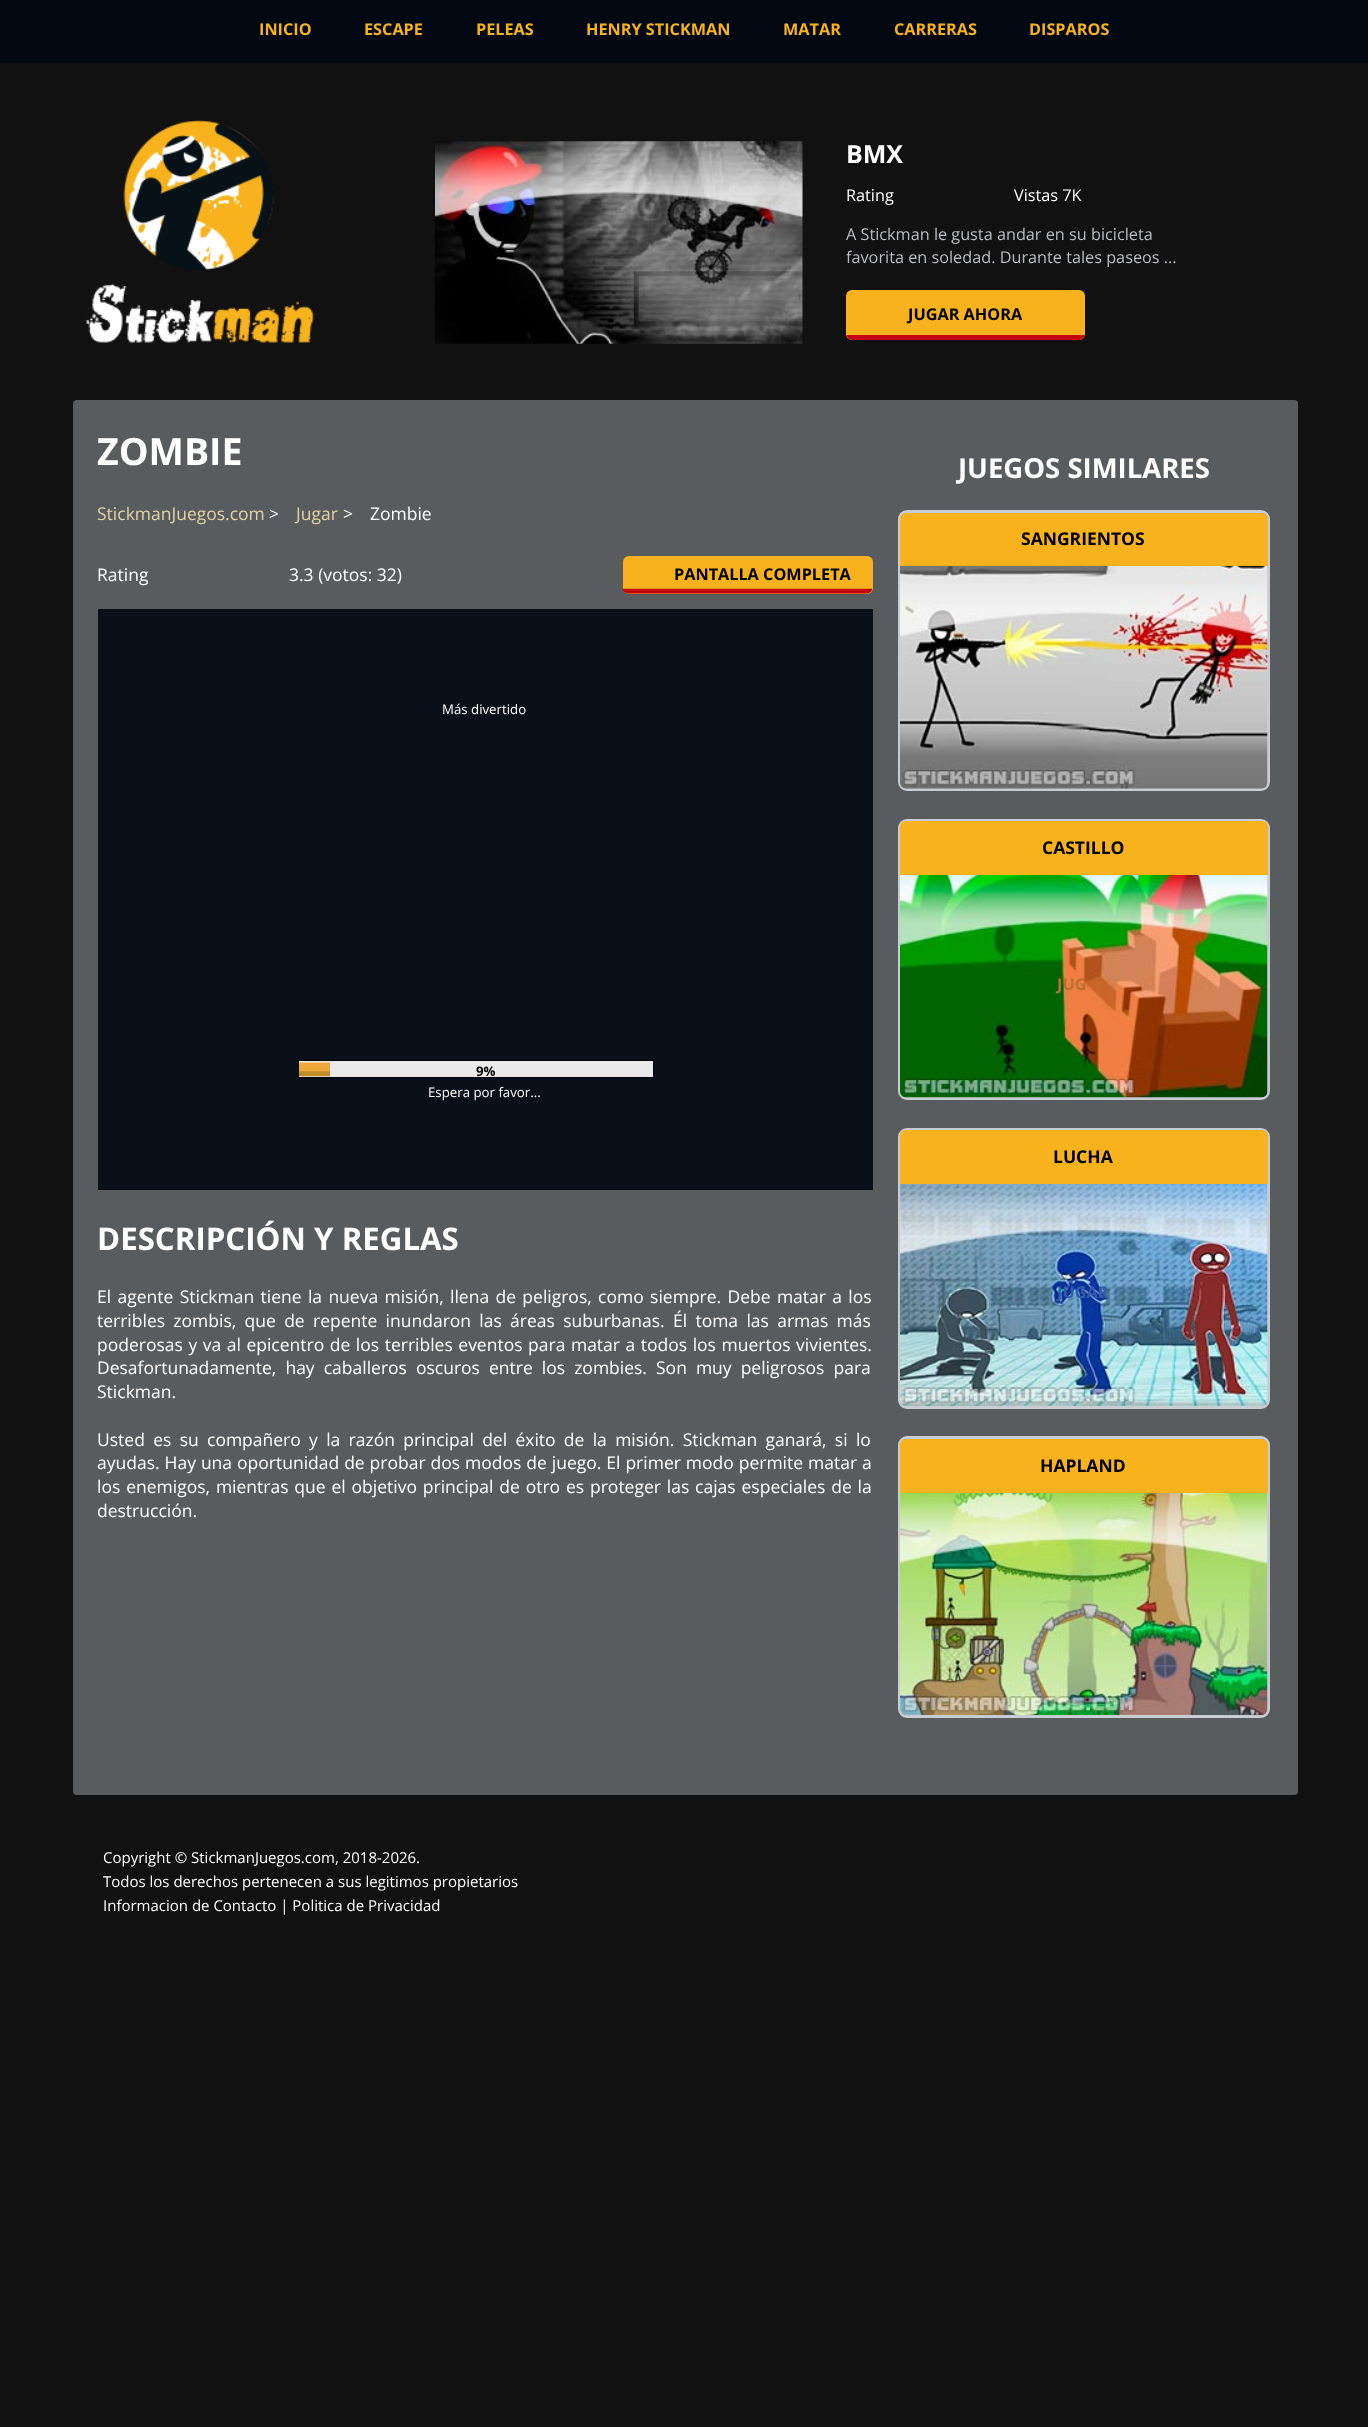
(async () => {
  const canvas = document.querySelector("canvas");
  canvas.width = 1368;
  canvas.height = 2427;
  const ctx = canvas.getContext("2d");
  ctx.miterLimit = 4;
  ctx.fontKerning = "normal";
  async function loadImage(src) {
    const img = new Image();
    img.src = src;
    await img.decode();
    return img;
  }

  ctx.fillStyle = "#111111";
  ctx.fillRect(0, 0, 1368, 2427);
  ctx.fillStyle = "#020811";
  ctx.fillRect(0, 0, 1368, 63);
  ctx.drawImage(await loadImage("img/1.png"), 86, 120, 228, 223);
  ctx.drawImage(await loadImage("img/2.png"), 435, 141, 368, 203);
  ctx.fillStyle = "#f7b21e";
  ctx.beginPath();
  ctx.roundRect(846, 290, 239, 50, 6);
  ctx.fill();
  ctx.drawImage(await loadImage("img/3.png"), 846, 335, 239, 5);
  ctx.fillStyle = "#595c5e";
  ctx.beginPath();
  ctx.roundRect(73, 400, 1225, 1395, 4);
  ctx.fill();
  ctx.fillStyle = "#f7b21e";
  ctx.beginPath();
  ctx.roundRect(623, 556, 250, 38, 6);
  ctx.fill();
  ctx.drawImage(await loadImage("img/4.png"), 622, 588, 251, 6);
  ctx.fillStyle = "#0a101a";
  ctx.fillRect(98, 609, 775, 581);
  ctx.fillStyle = "#eaeaea";
  ctx.beginPath();
  ctx.rect(298.5, 1060.5, 355, 17);
  ctx.fill();
  ctx.strokeStyle = "#000000";
  ctx.stroke();
  ctx.drawImage(await loadImage("img/5.png"), 298, 1062, 32, 15);
  ctx.beginPath();
  ctx.roundRect(899.5, 511.5, 369, 278, 7.5);
  ctx.strokeStyle = "#c8cdd4";
  ctx.lineWidth = 3;
  ctx.stroke();
  ctx.fillStyle = "#f7b21e";
  ctx.beginPath();
  ctx.roundRect(900, 513, 368, 53, [6, 6, 0, 0]);
  ctx.fill();
  ctx.drawImage(await loadImage("img/6.png"), 900, 566, 368, 223);
  ctx.beginPath();
  ctx.roundRect(899.5, 820.5, 369, 278, 7.5);
  ctx.stroke();
  ctx.beginPath();
  ctx.roundRect(900, 821, 368, 54, [6, 6, 0, 0]);
  ctx.fill();
  ctx.drawImage(await loadImage("img/7.png"), 900, 875, 368, 223);
  ctx.beginPath();
  ctx.roundRect(899.5, 1129.5, 369, 278, 7.5);
  ctx.stroke();
  ctx.beginPath();
  ctx.roundRect(900, 1130, 368, 54, [6, 6, 0, 0]);
  ctx.fill();
  ctx.drawImage(await loadImage("img/8.png"), 900, 1184, 368, 223);
  ctx.beginPath();
  ctx.roundRect(899.5, 1437.5, 369, 279, 7.5);
  ctx.stroke();
  ctx.beginPath();
  ctx.roundRect(900, 1439, 368, 54, [6, 6, 0, 0]);
  ctx.fill();
  ctx.drawImage(await loadImage("img/9.png"), 900, 1493, 368, 222);
  ctx.font = "bold 16.25px Open Sans";
  for (const [text, x, y] of [
    ["INICIO", 259, 35],
    ["ESCAPE", 364, 35],
    ["PELEAS", 476, 35],
    ["HENRY STICKMAN", 586, 35],
    ["MATAR", 783, 35],
    ["CARRERAS", 894, 35],
    ["DISPAROS", 1029, 35],
  ]) {
    ctx.fillText(text, x, y);
  }
  ctx.font = "bold 25px Open Sans";
  ctx.fillStyle = "#ffffff";
  ctx.fillText("BMX", 846, 163);
  ctx.font = "16.25px Open Sans";
  ctx.fillText("Rating", 846, 201);
  ctx.fillText("Vistas 7K", 1014, 201);
  ctx.fillStyle = "#babdc1";
  ctx.fillText("A Stickman le gusta andar en su bicicleta", 846, 240);
  ctx.fillText("favorita en soledad. Durante tales paseos ...", 846, 263);
  ctx.font = "bold 16.25px Open Sans";
  ctx.fillStyle = "#000000";
  ctx.fillText("JUGAR AHORA", 908, 320);
  ctx.font = "bold 37.5px Open Sans";
  ctx.fillStyle = "#ffffff";
  ctx.fillText("ZOMBIE", 97, 465);
  ctx.font = "17.5px Open Sans";
  ctx.fillStyle = "#e1d5a6";
  ctx.fillText("StickmanJuegos.com", 97, 520);
  ctx.fillStyle = "#ffffff";
  ctx.fillText(">", 269, 520);
  ctx.fillStyle = "#e1d5a6";
  ctx.fillText("Jugar", 296, 520);
  ctx.fillStyle = "#ffffff";
  for (const [text, x, y] of [
    [">", 343, 520],
    ["Zombie", 370, 520],
    ["Rating", 97, 581],
    ["3.3 (votos: 32)", 289, 581],
  ]) {
    ctx.fillText(text, x, y);
  }
  ctx.font = "bold 16.25px Open Sans";
  ctx.fillStyle = "#000000";
  ctx.fillText("PANTALLA COMPLETA", 674, 580);
  ctx.font = "13.25px Open Sans";
  ctx.fillStyle = "#ffffff";
  ctx.fillText("Más divertido", 442, 714);
  ctx.font = "bold 13.25px Open Sans";
  ctx.fillStyle = "#000000";
  ctx.fillText("9%", 476, 1076);
  ctx.font = "13.25px Open Sans";
  ctx.fillStyle = "#ffffff";
  ctx.fillText("Espera por favor...", 428, 1097);
  ctx.font = "bold 31.25px Open Sans";
  ctx.fillText("DESCRIPCIÓN Y REGLAS", 97, 1250);
  ctx.wordSpacing = "1.8px";
  ctx.font = "17.5px Open Sans";
  ctx.fillText("El agente Stickman tiene la nueva misión, llena de peligros, como siempre. Debe matar a los", 97, 1303);
  ctx.wordSpacing = "3.75px";
  ctx.fillText("terribles zombis, que de repente inundaron las áreas suburbanas. Él toma las armas más", 97, 1327);
  ctx.wordSpacing = "1px";
  ctx.fillText("poderosas y va al epicentro de los terribles eventos para matar a todos los muertos vivientes.", 97, 1351);
  ctx.wordSpacing = "4.5px";
  ctx.fillText("Desafortunadamente, hay caballeros oscuros entre los zombies. Son muy peligrosos para", 97, 1374);
  ctx.wordSpacing = "0px";
  ctx.fillText("Stickman.", 97, 1398);
  ctx.wordSpacing = "3.75px";
  ctx.fillText("Usted es su compañero y la razón principal del éxito de la misión. Stickman ganará, si lo", 97, 1446);
  ctx.wordSpacing = "0.4px";
  ctx.fillText("ayudas. Hay una oportunidad de probar dos modos de juego. El primer modo permite matar a", 97, 1469);
  ctx.wordSpacing = "1.3px";
  ctx.fillText("los enemigos, mientras que el objetivo principal de otro es proteger las cajas especiales de la", 97, 1493);
  ctx.wordSpacing = "0px";
  ctx.fillText("destrucción.", 97, 1517);
  ctx.font = "bold 27.5px Open Sans";
  ctx.fillText("JUEGOS SIMILARES", 958, 478);
  ctx.font = "bold 17.5px Open Sans";
  ctx.fillStyle = "#000000";
  ctx.fillText("SANGRIENTOS", 1021, 545);
  ctx.fillText("CASTILLO", 1042, 854);
  ctx.font = "bold 16.25px Open Sans";
  ctx.fillStyle = "#b8722f";
  ctx.fillText("JUG", 1057, 990);
  ctx.font = "bold 17.5px Open Sans";
  ctx.fillStyle = "#000000";
  ctx.fillText("LUCHA", 1053, 1163);
  ctx.font = "bold 16.25px Open Sans";
  ctx.fillStyle = "#315eac";
  ctx.fillText("JUGAR", 1057, 1298);
  ctx.font = "bold 17.5px Open Sans";
  ctx.fillStyle = "#000000";
  ctx.fillText("HAPLAND", 1040, 1472);
  ctx.font = "15px Open Sans";
  ctx.fillStyle = "#ffffff";
  for (const [text, x, y] of [
    ["Copyright © StickmanJuegos.com, 2018-2026.", 103, 1863],
    ["Todos los derechos pertenecen a sus legitimos propietarios", 103, 1887],
    ["Informacion de Contacto | Politica de Privacidad", 103, 1911],
  ]) {
    ctx.fillText(text, x, y);
  }
})();
